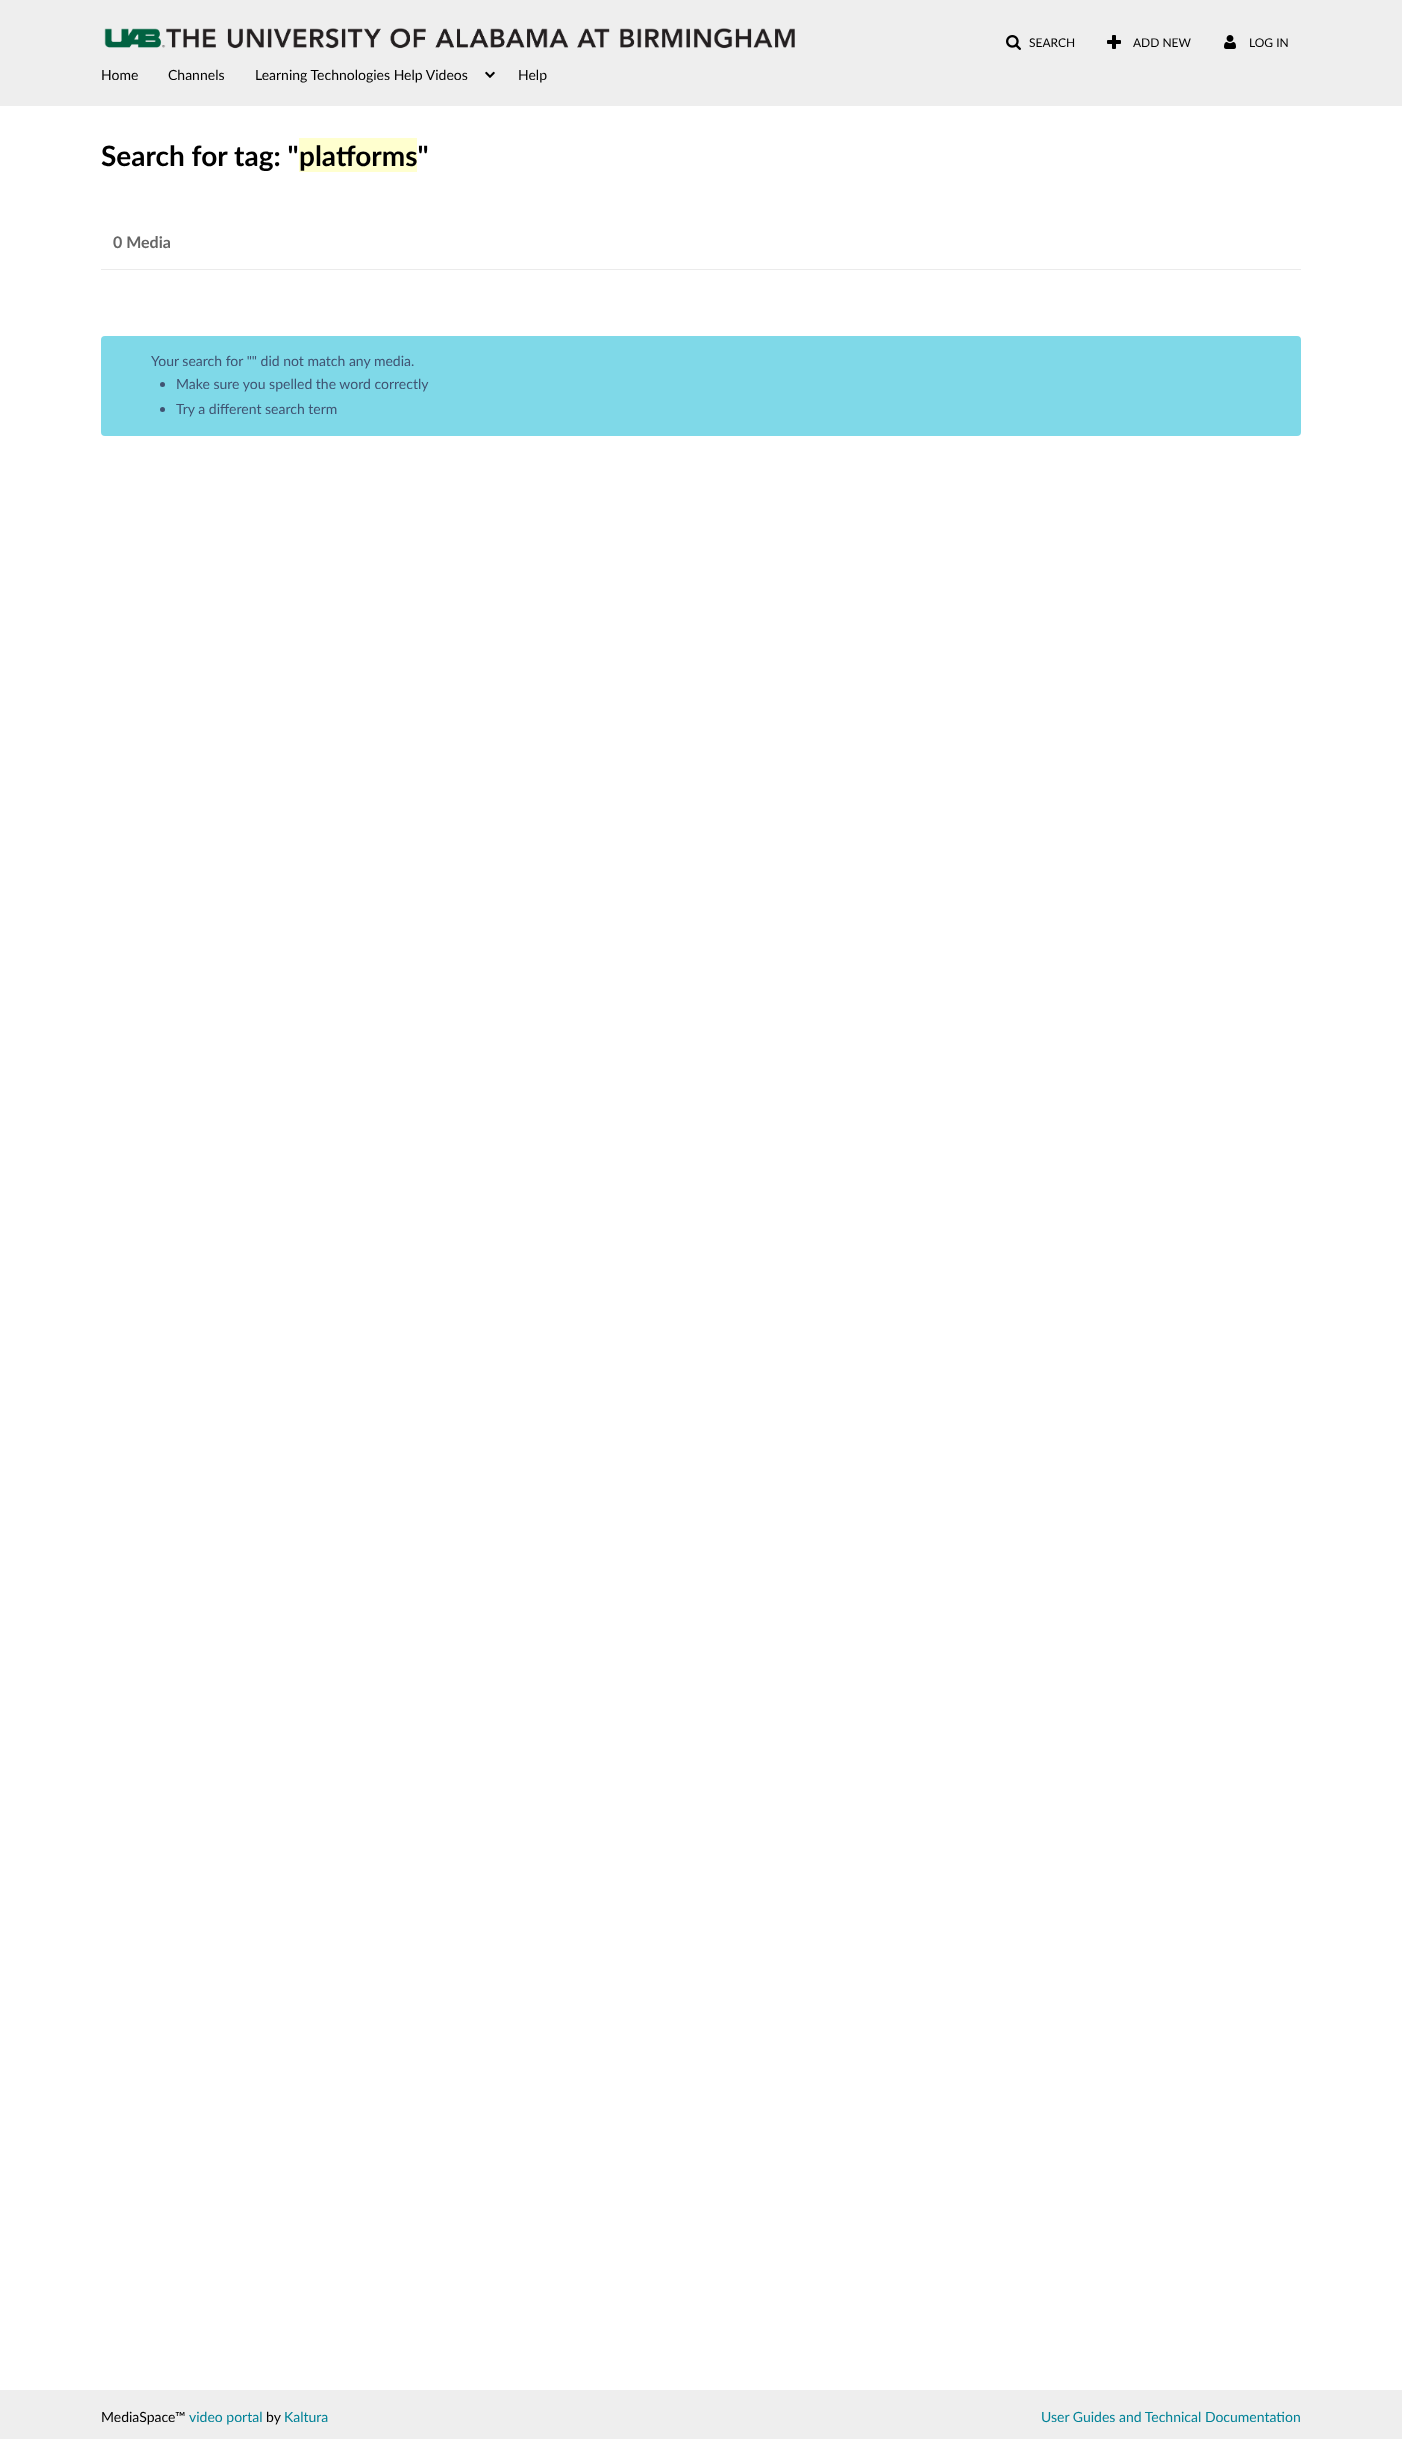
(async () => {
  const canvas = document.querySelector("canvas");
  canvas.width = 1402;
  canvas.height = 2439;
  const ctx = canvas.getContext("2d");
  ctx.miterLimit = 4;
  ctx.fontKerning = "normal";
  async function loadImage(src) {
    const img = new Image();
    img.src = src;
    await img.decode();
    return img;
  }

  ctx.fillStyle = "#ffffff";
  ctx.fillRect(0, 0, 1402, 2439);
  ctx.fillStyle = "#eeeeee";
  ctx.fillRect(0, 0, 1402, 106);
  ctx.drawImage(await loadImage("img/1.png"), 104, 28, 691, 21);
  ctx.drawImage(await loadImage("img/2.png"), 1006, 35, 15, 15);
  ctx.drawImage(await loadImage("img/3.png"), 1107, 35, 14, 14);
  ctx.drawImage(await loadImage("img/4.png"), 1224, 35, 12, 14);
  ctx.drawImage(await loadImage("img/5.png"), 485, 71, 10, 7);
  ctx.fillStyle = "#ffffcf";
  ctx.fillRect(299, 138, 118, 34);
  ctx.fillStyle = "#ebebeb";
  ctx.fillRect(101, 269, 1200, 1);
  ctx.fillStyle = "#7fd9e8";
  ctx.beginPath();
  ctx.roundRect(101, 336, 1200, 100, 4);
  ctx.fill();
  ctx.fillStyle = "#405372";
  ctx.beginPath();
  ctx.arc(162.5, 384.5, 2.5, 0, Math.PI * 2);
  ctx.fill();
  ctx.beginPath();
  ctx.arc(162.5, 409.5, 2.5, 0, Math.PI * 2);
  ctx.fill();
  ctx.fillStyle = "#eeeeee";
  ctx.fillRect(0, 2390, 1402, 49);
  ctx.font = "12px Lato";
  ctx.fillStyle = "#000000";
  for (const [text, x, y] of [
    ["SEARCH", 1029, 47],
    ["ADD NEW", 1133, 47],
    ["LOG IN", 1249, 47],
  ]) {
    ctx.fillText(text, x, y);
  }
  ctx.font = "14px Lato";
  for (const [text, x, y] of [
    ["Home", 101, 80],
    ["Channels", 168, 80],
    ["Learning Technologies Help Videos", 255, 80],
    ["Help", 518, 80],
  ]) {
    ctx.fillText(text, x, y);
  }
  ctx.font = "bold 28px Lato";
  ctx.fillText("Search for tag: \"", 101, 166);
  ctx.fillText("platforms\"", 299, 166);
  ctx.font = "bold 16px Lato";
  ctx.fillStyle = "#666666";
  ctx.fillText("0 Media", 113, 248);
  ctx.font = "14px Lato";
  ctx.fillStyle = "#405372";
  for (const [text, x, y] of [
    ["Your search for \"\" did not match any media.", 151, 366],
    ["Make sure you spelled the word correctly", 176, 389],
    ["Try a different search term", 176, 414],
  ]) {
    ctx.fillText(text, x, y);
  }
  ctx.fillStyle = "#000000";
  ctx.fillText("MediaSpace™", 101, 2422);
  ctx.fillStyle = "#008297";
  ctx.fillText("video portal", 189, 2422);
  ctx.fillStyle = "#000000";
  ctx.fillText("by", 266, 2422);
  ctx.fillStyle = "#008297";
  ctx.fillText("Kaltura", 284, 2422);
  ctx.fillText("User Guides and Technical Documentation", 1041, 2422);
})();
